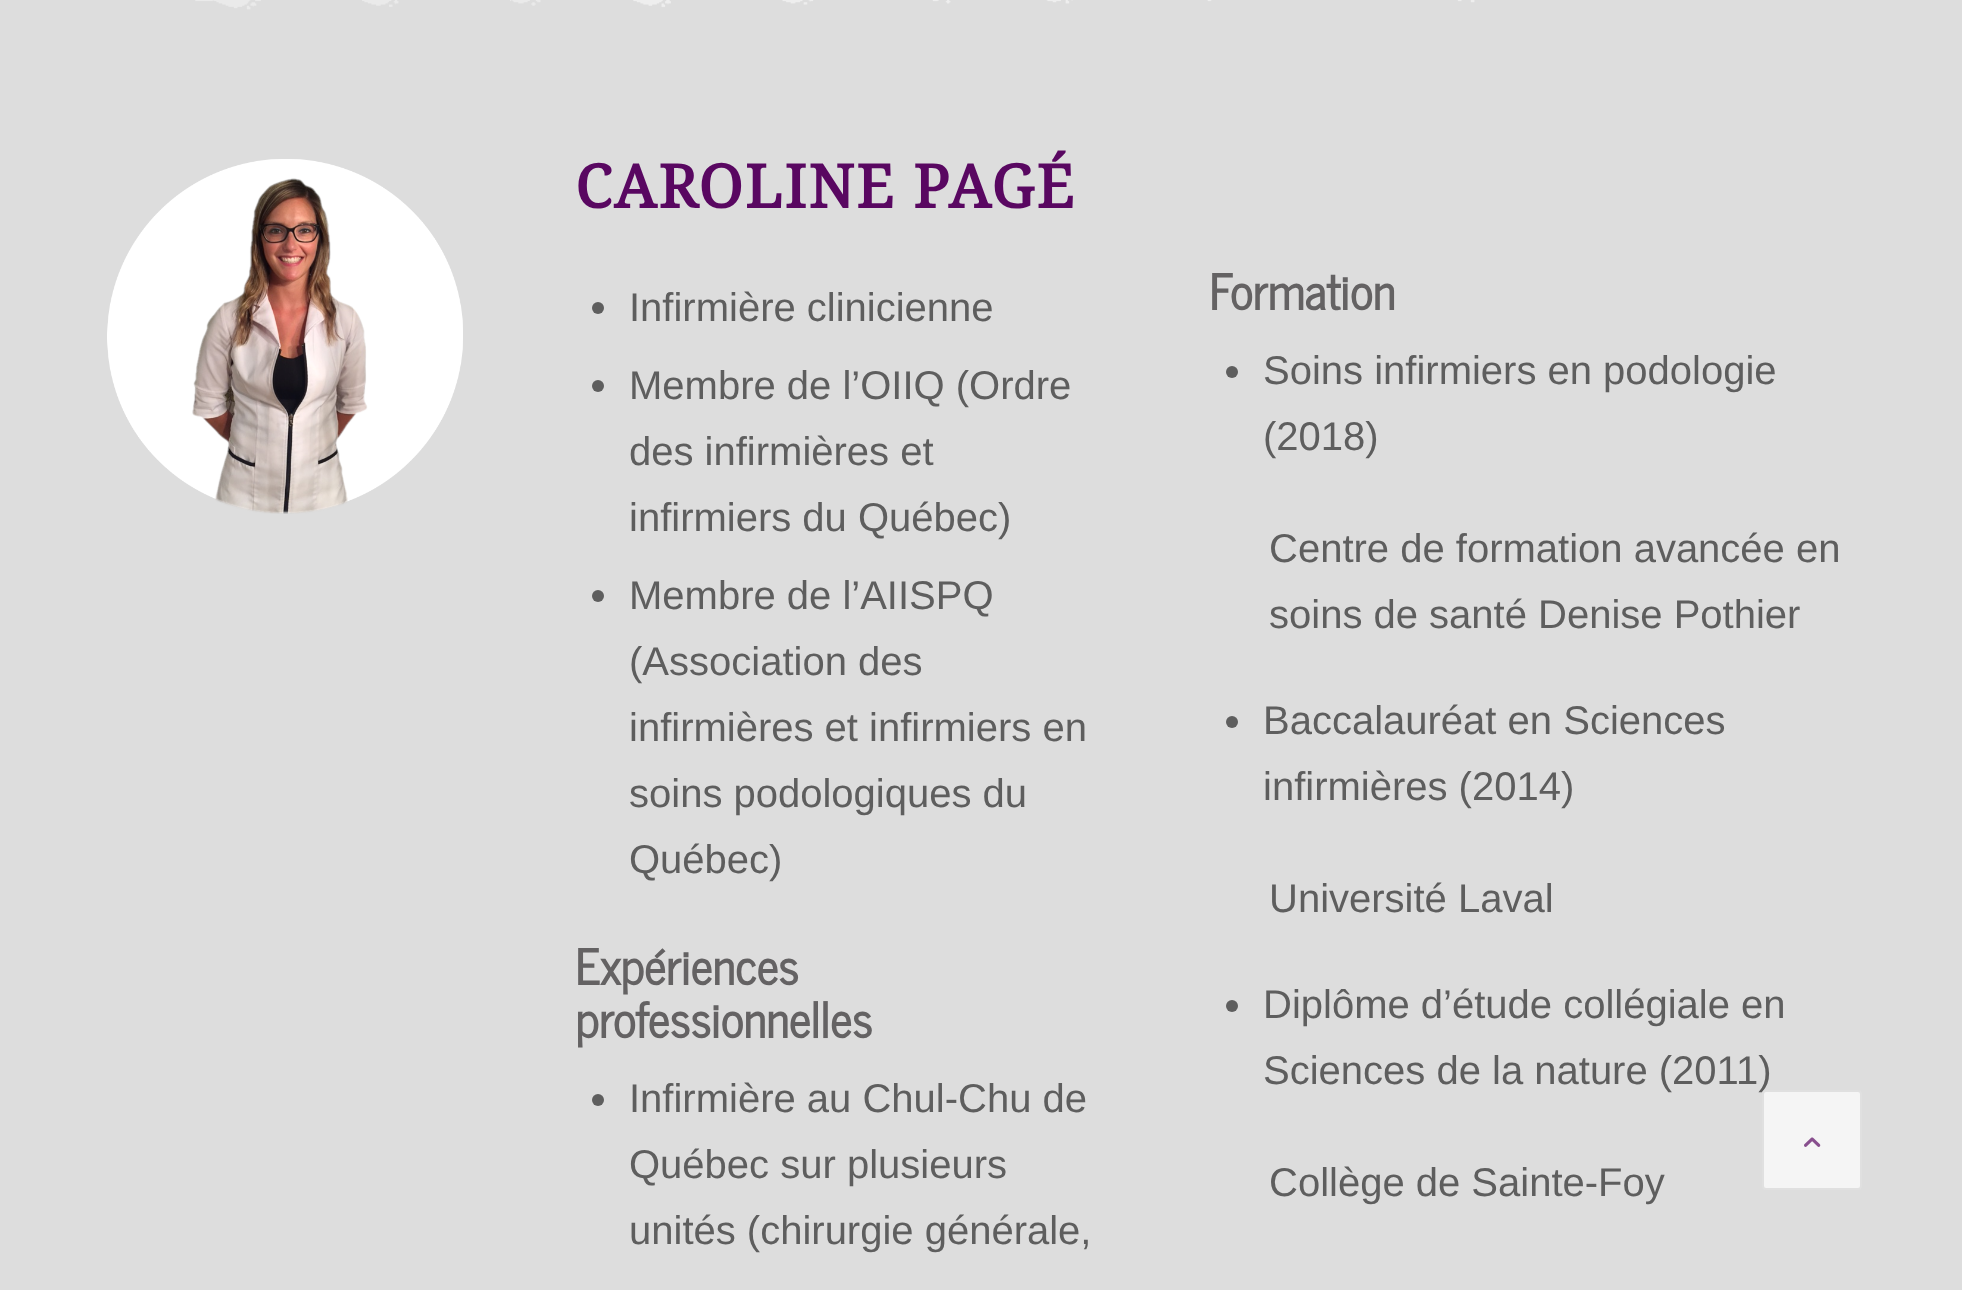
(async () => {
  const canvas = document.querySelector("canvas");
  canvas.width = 1962;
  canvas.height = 1290;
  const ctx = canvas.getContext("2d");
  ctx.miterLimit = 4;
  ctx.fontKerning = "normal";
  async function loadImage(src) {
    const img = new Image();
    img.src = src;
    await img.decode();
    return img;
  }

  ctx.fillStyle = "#dddddd";
  ctx.fillRect(0, 0, 1962, 1290);
  ctx.drawImage(await loadImage("img/1.png"), 195, 0, 1280, 10);
  ctx.drawImage(await loadImage("img/2.png"), 107, 159, 356, 355);
  ctx.fillStyle = "#5e5e5e";
  ctx.beginPath();
  ctx.arc(598, 308, 6, 0, Math.PI * 2);
  ctx.fill();
  ctx.beginPath();
  ctx.arc(598, 386, 6, 0, Math.PI * 2);
  ctx.fill();
  ctx.beginPath();
  ctx.arc(598, 596, 6, 0, Math.PI * 2);
  ctx.fill();
  ctx.beginPath();
  ctx.arc(598, 1100, 6, 0, Math.PI * 2);
  ctx.fill();
  ctx.beginPath();
  ctx.arc(1232, 372, 6, 0, Math.PI * 2);
  ctx.fill();
  ctx.beginPath();
  ctx.arc(1232, 722, 6, 0, Math.PI * 2);
  ctx.fill();
  ctx.beginPath();
  ctx.arc(1232, 1006, 6, 0, Math.PI * 2);
  ctx.fill();
  ctx.letterSpacing = "2px";
  ctx.font = "bold 60px Droid Serif";
  ctx.fillStyle = "#590761";
  ctx.fillText("CAROLINE PAGÉ", 575, 208);
  ctx.letterSpacing = "0px";
  ctx.font = "40px Liberation Sans";
  ctx.fillStyle = "#5e5e5e";
  for (const [text, x, y] of [
    ["Infirmière clinicienne", 629, 321],
    ["Membre de l’OIIQ (Ordre", 629, 399],
    ["des infirmières et", 629, 465],
    ["infirmiers du Québec)", 629, 531],
    ["Membre de l’AIISPQ", 629, 609],
    ["(Association des", 629, 675],
    ["infirmières et infirmiers en", 629, 741],
    ["soins podologiques du", 629, 807],
    ["Québec)", 629, 873],
  ]) {
    ctx.fillText(text, x, y);
  }
  ctx.font = "bold 48px News Cycle";
  ctx.fillStyle = "#646263";
  ctx.fillText("Expériences", 575, 985);
  ctx.fillText("professionnelles", 575, 1038);
  ctx.font = "40px Liberation Sans";
  ctx.fillStyle = "#5e5e5e";
  for (const [text, x, y] of [
    ["Infirmière au Chul-Chu de", 629, 1112],
    ["Québec sur plusieurs", 629, 1178],
    ["unités (chirurgie générale,", 629, 1244],
  ]) {
    ctx.fillText(text, x, y);
  }
  ctx.font = "bold 48px News Cycle";
  ctx.fillStyle = "#646263";
  ctx.fillText("Formation", 1209, 310);
  ctx.font = "40px Liberation Sans";
  ctx.fillStyle = "#5e5e5e";
  for (const [text, x, y] of [
    ["Soins infirmiers en podologie", 1263, 384],
    ["(2018)", 1263, 450],
    ["Centre de formation avancée en", 1269, 562],
    ["soins de santé Denise Pothier", 1269, 628],
    ["Baccalauréat en Sciences", 1263, 734],
    ["infirmières (2014)", 1263, 800],
    ["Université Laval", 1269, 912],
    ["Diplôme d’étude collégiale en", 1263, 1018],
    ["Sciences de la nature (2011)", 1263, 1084],
    ["Collège de Sainte-Foy", 1269, 1196],
  ]) {
    ctx.fillText(text, x, y);
  }
  ctx.fillStyle = "#f5f5f5";
  ctx.beginPath();
  ctx.roundRect(1763, 1091, 98, 98, 3);
  ctx.fill();
  ctx.strokeStyle = "#e0e0e0";
  ctx.lineWidth = 2;
  ctx.stroke();
  ctx.drawImage(await loadImage("img/3.png"), 1804, 1137, 17, 10);
})();
